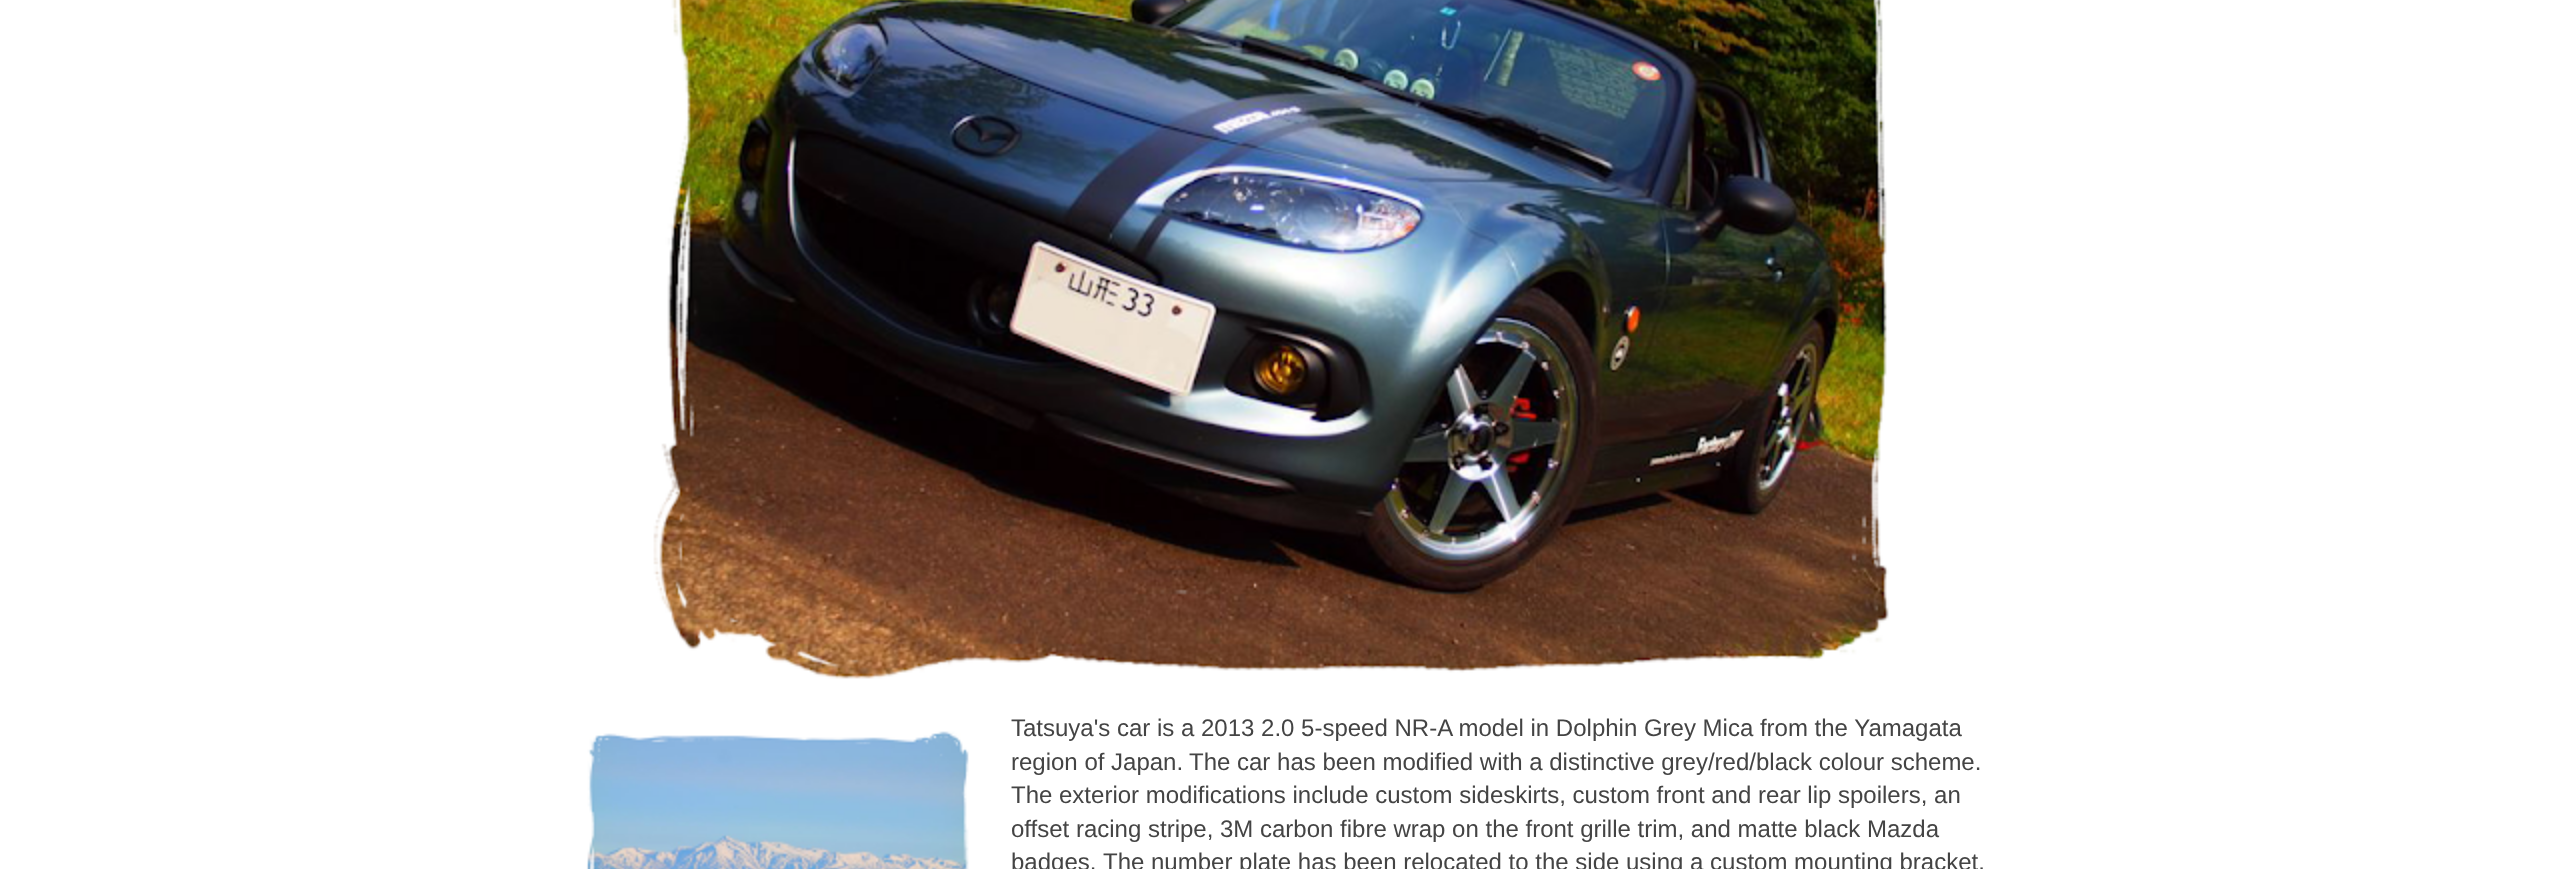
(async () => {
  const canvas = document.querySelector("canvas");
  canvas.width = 2572;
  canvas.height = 869;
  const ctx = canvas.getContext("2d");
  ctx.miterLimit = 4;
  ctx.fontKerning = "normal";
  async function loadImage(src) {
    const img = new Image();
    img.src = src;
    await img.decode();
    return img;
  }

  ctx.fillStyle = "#ffffff";
  ctx.fillRect(0, 0, 2572, 869);
  ctx.drawImage(await loadImage("img/1.png"), 653, 0, 1236, 679);
  ctx.drawImage(await loadImage("img/2.png"), 586, 731, 383, 138);
  ctx.font = "24px Liberation Sans";
  ctx.fillStyle = "#444444";
  for (const [text, x, y] of [
    ["Tatsuya's car is a 2013 2.0 5-speed NR-A model in Dolphin Grey Mica from the Yamagata", 1011, 736],
    ["region of Japan.", 1011, 770],
    ["The car has been modified with a distinctive grey/red/black colour scheme.", 1189, 770],
    ["The exterior modifications include custom sideskirts, custom front and rear lip spoilers, an", 1011, 803],
    ["offset racing stripe, 3M carbon fibre wrap on the front grille trim, and matte black Mazda", 1011, 837],
    ["badges.", 1011, 870],
    ["The number plate has been relocated to the side using a custom mounting bracket.", 1103, 870],
  ]) {
    ctx.fillText(text, x, y);
  }
})();
